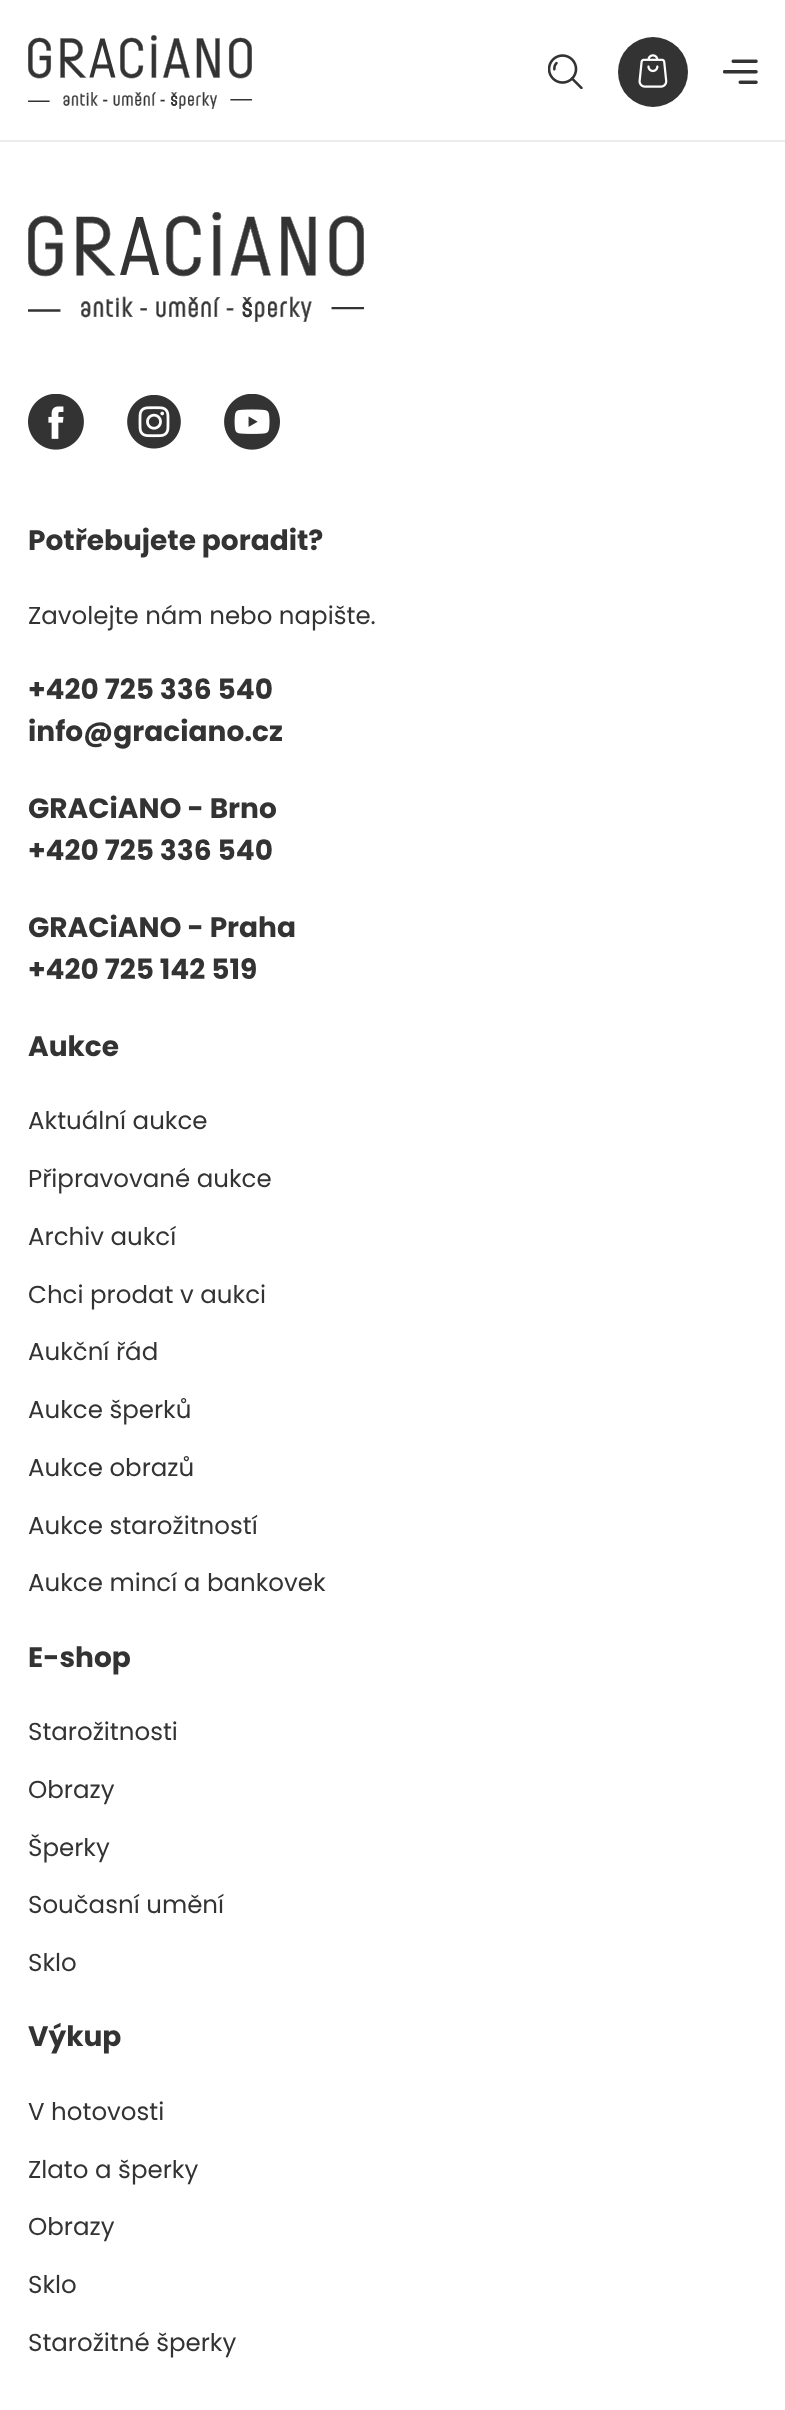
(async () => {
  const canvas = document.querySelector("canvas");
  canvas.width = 785;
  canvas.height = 2410;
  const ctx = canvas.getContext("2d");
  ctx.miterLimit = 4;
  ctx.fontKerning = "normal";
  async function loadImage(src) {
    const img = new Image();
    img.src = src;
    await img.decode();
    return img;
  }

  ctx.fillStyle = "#ffffff";
  ctx.fillRect(0, 0, 785, 2410);
  ctx.drawImage(await loadImage("img/1.png"), 28, 35, 224, 74);
  ctx.drawImage(await loadImage("img/2.png"), 548, 54, 35, 35);
  ctx.fillStyle = "#333333";
  ctx.beginPath();
  ctx.arc(653, 72, 35, 0, Math.PI * 2);
  ctx.fill();
  ctx.drawImage(await loadImage("img/3.png"), 638, 54, 30, 34);
  ctx.drawImage(await loadImage("img/4.png"), 723, 59, 35, 25);
  ctx.fillStyle = "#ededed";
  ctx.fillRect(0, 140, 785, 2);
  ctx.drawImage(await loadImage("img/5.png"), 28, 212, 336, 110);
  ctx.drawImage(await loadImage("img/6.png"), 28, 394, 56, 56);
  ctx.drawImage(await loadImage("img/7.png"), 127, 395, 54, 54);
  ctx.drawImage(await loadImage("img/8.png"), 224, 394, 56, 56);
  ctx.font = "bold 28px Poppins";
  ctx.fillStyle = "#333333";
  ctx.fillText("Potřebujete poradit?", 28, 550);
  ctx.font = "24.5px Poppins";
  ctx.fillText("Zavolejte nám nebo napište.", 28, 624);
  ctx.font = "bold 28px Poppins";
  for (const [text, x, y] of [
    ["+420 725 336 540", 28, 699],
    ["info@graciano.cz", 28, 741],
    ["GRACiANO - Brno", 28, 818],
    ["+420 725 336 540", 28, 860],
    ["GRACiANO - Praha", 28, 937],
    ["+420 725 142 519", 28, 979],
    ["Aukce", 28, 1056],
  ]) {
    ctx.fillText(text, x, y);
  }
  ctx.font = "24.5px Poppins";
  for (const [text, x, y] of [
    ["Aktuální aukce", 28, 1129],
    ["Připravované aukce", 28, 1187],
    ["Archiv aukcí", 28, 1245],
    ["Chci prodat v aukci", 28, 1303],
    ["Aukční řád", 28, 1360],
    ["Aukce šperků", 28, 1418],
    ["Aukce obrazů", 28, 1476],
    ["Aukce starožitností", 28, 1534],
    ["Aukce mincí a bankovek", 28, 1591],
  ]) {
    ctx.fillText(text, x, y);
  }
  ctx.font = "bold 28px Poppins";
  ctx.fillText("E-shop", 28, 1667);
  ctx.font = "24.5px Poppins";
  for (const [text, x, y] of [
    ["Starožitnosti", 28, 1740],
    ["Obrazy", 28, 1798],
    ["Šperky", 28, 1856],
    ["Současní umění", 28, 1913],
    ["Sklo", 28, 1971],
  ]) {
    ctx.fillText(text, x, y);
  }
  ctx.font = "bold 28px Poppins";
  ctx.fillText("Výkup", 28, 2046);
  ctx.font = "24.5px Poppins";
  for (const [text, x, y] of [
    ["V hotovosti", 28, 2120],
    ["Zlato a šperky", 28, 2178],
    ["Obrazy", 28, 2235],
    ["Sklo", 28, 2293],
    ["Starožitné šperky", 28, 2351],
  ]) {
    ctx.fillText(text, x, y);
  }
})();
